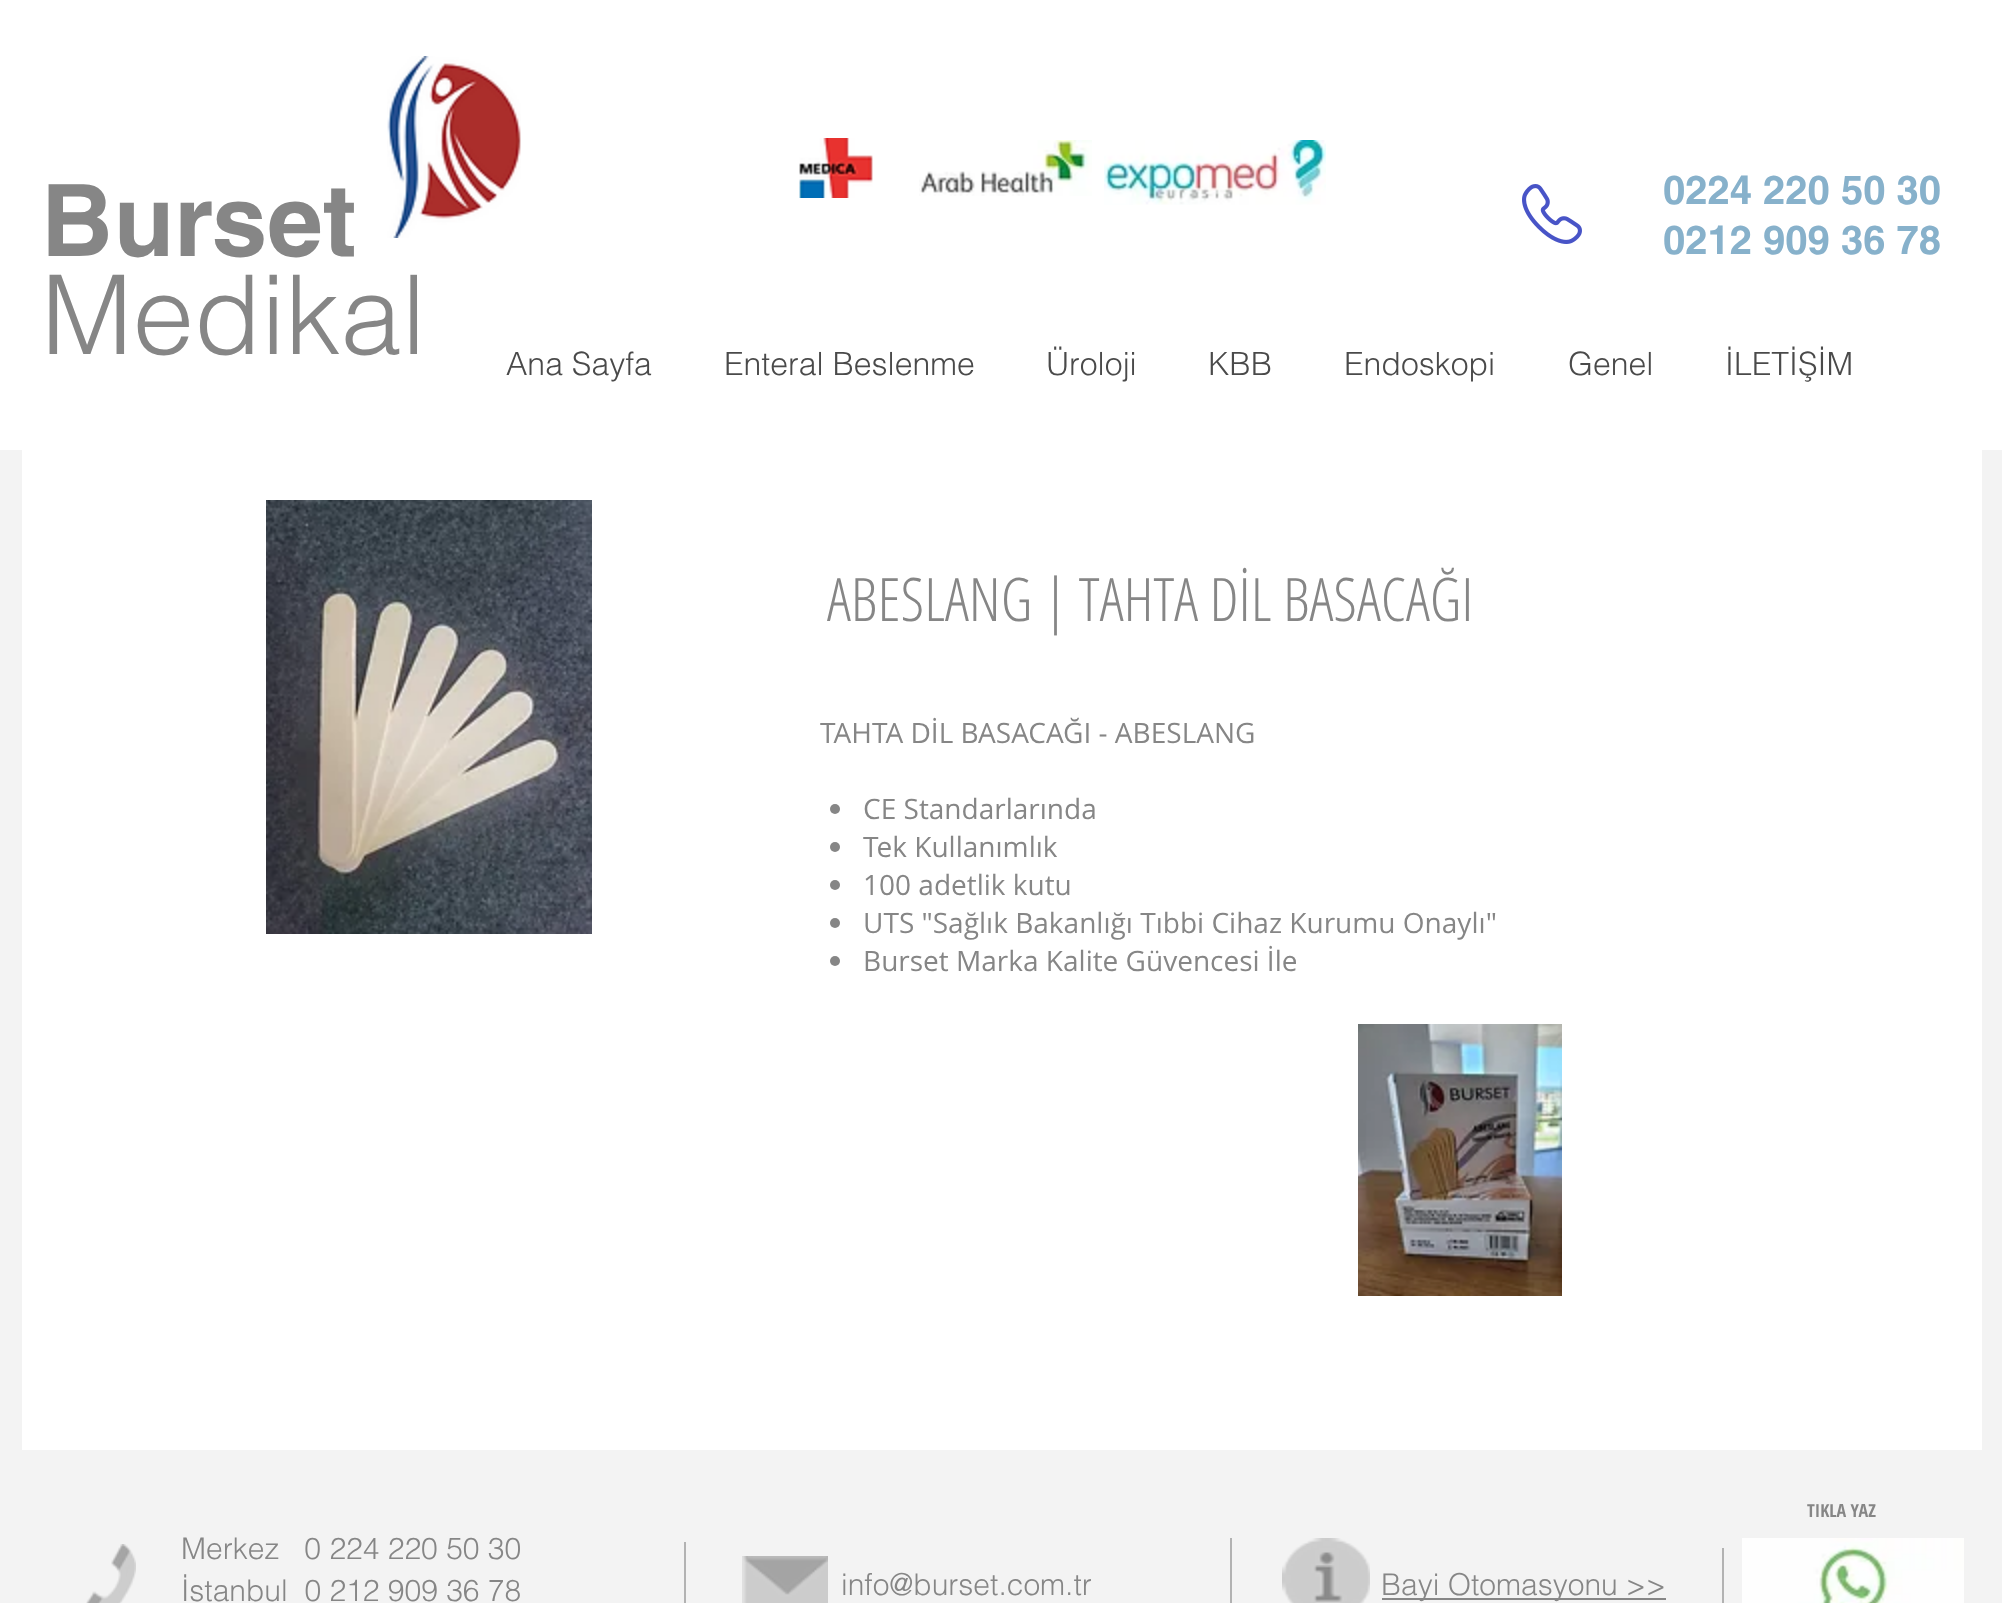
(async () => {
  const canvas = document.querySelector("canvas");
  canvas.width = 2002;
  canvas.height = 1603;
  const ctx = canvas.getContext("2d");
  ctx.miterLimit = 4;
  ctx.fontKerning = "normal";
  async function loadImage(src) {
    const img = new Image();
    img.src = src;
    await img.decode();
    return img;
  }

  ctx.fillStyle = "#f3f3f3";
  ctx.fillRect(0, 0, 2002, 1603);
  ctx.fillStyle = "#ffffff";
  ctx.fillRect(0, 0, 2002, 450);
  ctx.drawImage(await loadImage("img/1.png"), 387, 56, 134, 182);
  ctx.drawImage(await loadImage("img/2.png"), 799, 138, 74, 60);
  ctx.drawImage(await loadImage("img/3.png"), 919, 140, 173, 56);
  ctx.drawImage(await loadImage("img/4.png"), 1104, 140, 222, 65);
  ctx.drawImage(await loadImage("img/5.png"), 1522, 184, 60, 60);
  ctx.fillRect(22, 450, 1960, 1000);
  ctx.drawImage(await loadImage("img/6.png"), 266, 500, 326, 434);
  ctx.fillStyle = "#868686";
  ctx.beginPath();
  ctx.arc(835, 809, 5, 0, Math.PI * 2);
  ctx.fill();
  ctx.beginPath();
  ctx.arc(835, 847, 5, 0, Math.PI * 2);
  ctx.fill();
  ctx.beginPath();
  ctx.arc(835, 885, 5, 0, Math.PI * 2);
  ctx.fill();
  ctx.beginPath();
  ctx.arc(835, 923, 5, 0, Math.PI * 2);
  ctx.fill();
  ctx.beginPath();
  ctx.arc(835, 961, 5, 0, Math.PI * 2);
  ctx.fill();
  ctx.drawImage(await loadImage("img/7.png"), 1358, 1024, 204, 272);
  ctx.drawImage(await loadImage("img/8.png"), 86, 1544, 50, 59);
  ctx.fillStyle = "#b2b2b2";
  ctx.fillRect(684, 1542, 2, 61);
  ctx.drawImage(await loadImage("img/9.png"), 742, 1556, 86, 47);
  ctx.fillRect(1230, 1538, 2, 65);
  ctx.drawImage(await loadImage("img/10.png"), 1282, 1538, 88, 65);
  ctx.fillStyle = "#868686";
  ctx.fillRect(1382, 1598, 284, 2);
  ctx.fillStyle = "#b2b2b2";
  ctx.fillRect(1722, 1548, 2, 55);
  ctx.drawImage(await loadImage("img/11.png"), 1742, 1538, 222, 65);
  ctx.font = "bold 100px helvetica";
  ctx.fillStyle = "#868686";
  ctx.fillText("Burset", 41, 256);
  ctx.font = "300 110px helvetica";
  ctx.fillText("Medikal", 41, 354);
  ctx.font = "bold 40px helvetica";
  ctx.fillStyle = "#87b1cb";
  ctx.fillText("0224 220 50 30", 1663, 204);
  ctx.fillText("0212 909 36 78", 1663, 254);
  ctx.font = "300 32px helvetica";
  ctx.fillStyle = "#4a4a4a";
  for (const [text, x, y] of [
    ["Ana Sayfa", 506, 375],
    ["Enteral Beslenme", 724, 375],
    ["Üroloji", 1046, 375],
    ["KBB", 1208, 375],
    ["Endoskopi", 1344, 375],
    ["Genel", 1568, 375],
    ["İLETİŞİM", 1725, 375],
  ]) {
    ctx.fillText(text, x, y);
  }
  ctx.font = "300 60px Open Sans Condensed";
  ctx.fillStyle = "#868686";
  ctx.fillText("ABESLANG | TAHTA DİL BASACAĞI", 827, 621);
  ctx.font = "28px Open Sans";
  for (const [text, x, y] of [
    ["TAHTA DİL BASACAĞI - ABESLANG", 820, 743],
    ["CE Standarlarında", 863, 819],
    ["Tek Kullanımlık", 863, 857],
    ["100 adetlik kutu", 863, 895],
    ["UTS \"Sağlık Bakanlığı Tıbbi Cihaz Kurumu Onaylı\"", 863, 933],
    ["Burset Marka Kalite Güvencesi İle", 863, 971],
  ]) {
    ctx.fillText(text, x, y);
  }
  ctx.font = "bold 18px Open Sans Condensed";
  ctx.fillText("TIKLA YAZ", 1807, 1517);
  ctx.font = "300 30px helvetica";
  for (const [text, x, y] of [
    ["Merkez   0 224 220 50 30", 181, 1559],
    ["İstanbul  0 212 909 36 78", 181, 1601],
    ["info@burset.com.tr", 841, 1595],
    ["Bayi Otomasyonu >>", 1381, 1595],
  ]) {
    ctx.fillText(text, x, y);
  }
})();
